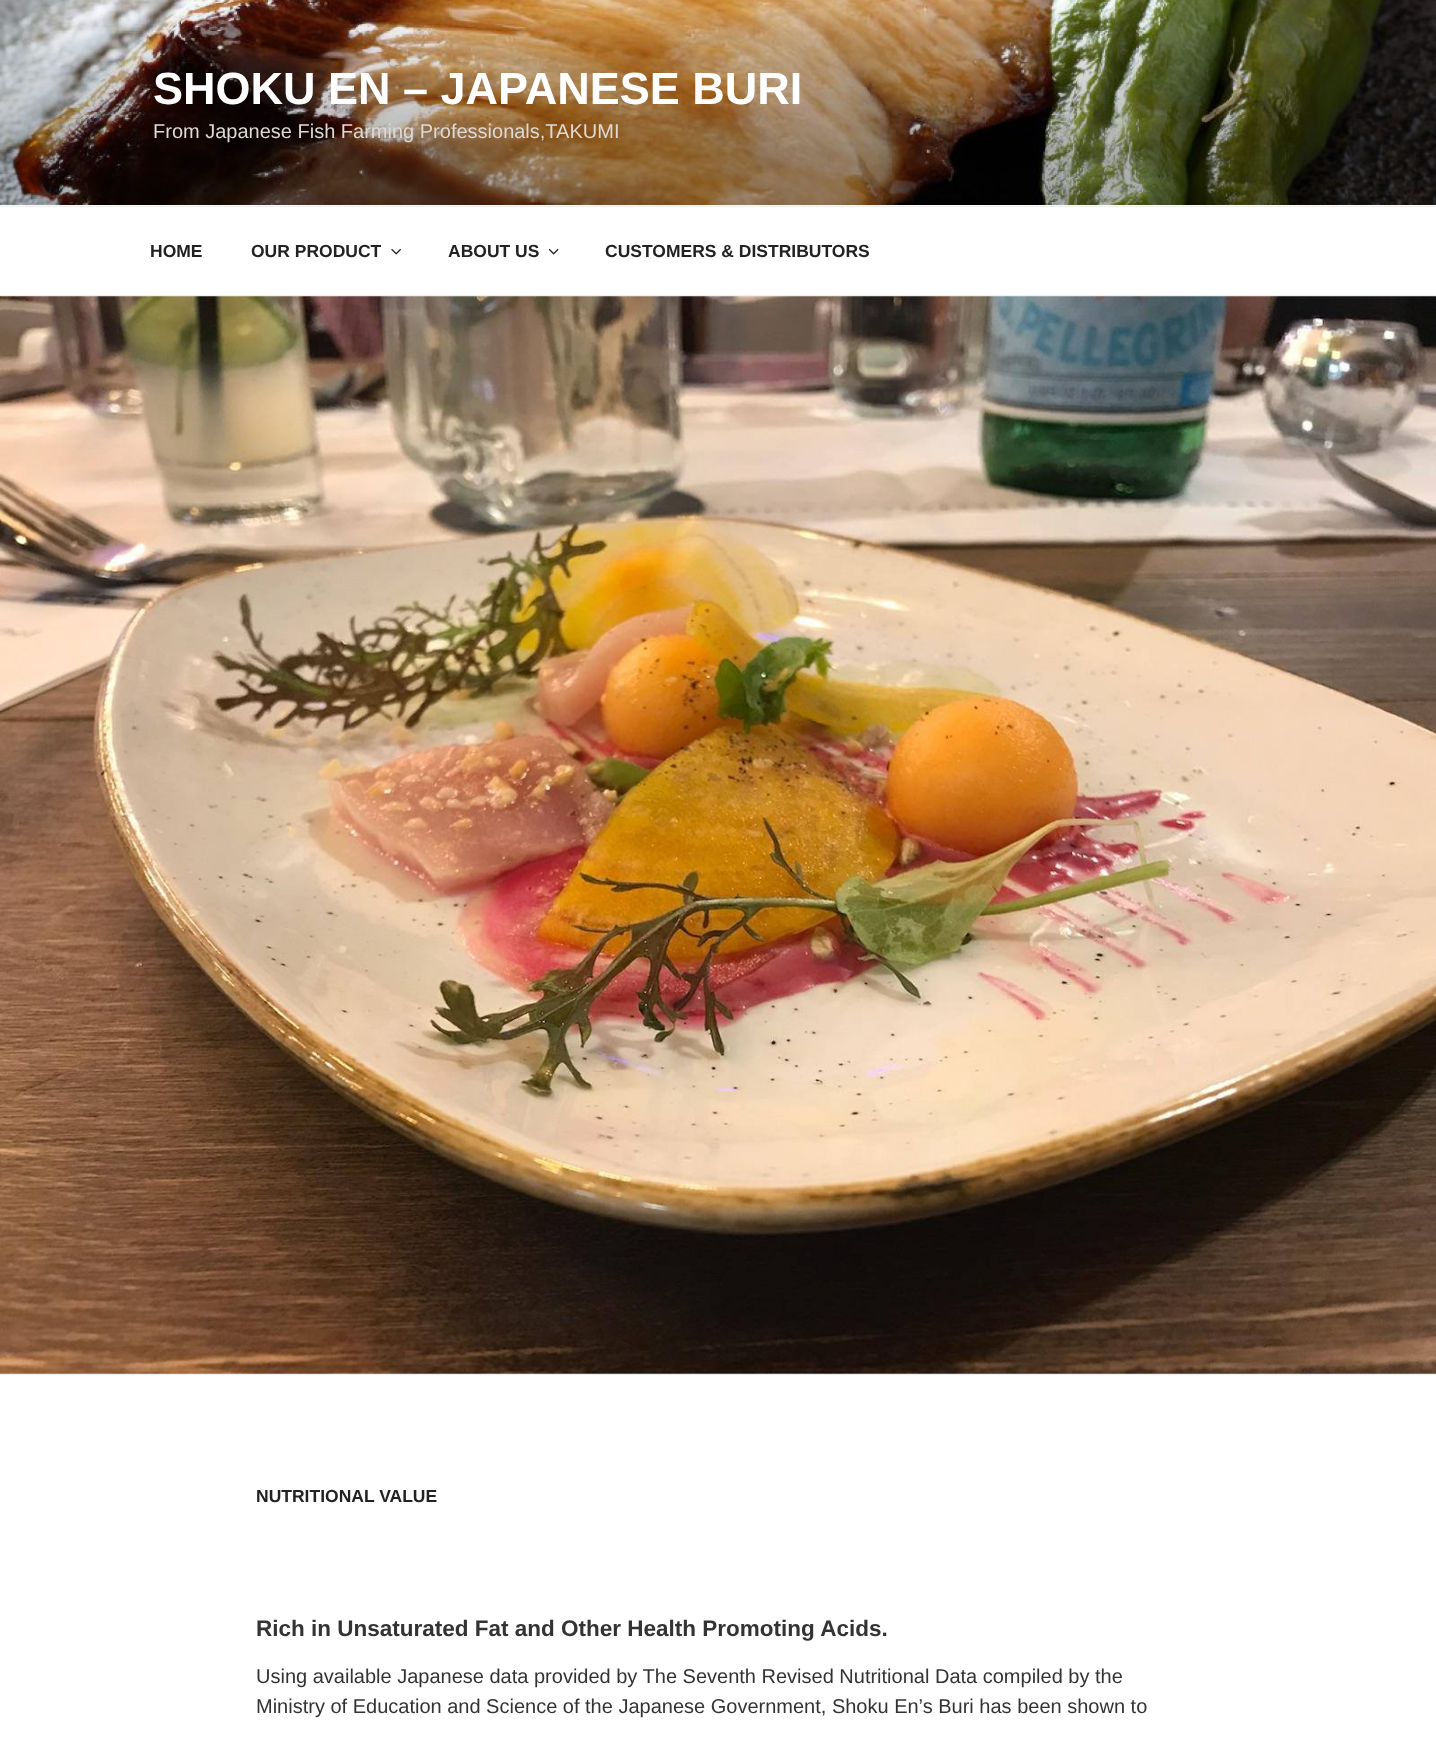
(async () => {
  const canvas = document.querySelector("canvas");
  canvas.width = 1436;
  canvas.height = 1737;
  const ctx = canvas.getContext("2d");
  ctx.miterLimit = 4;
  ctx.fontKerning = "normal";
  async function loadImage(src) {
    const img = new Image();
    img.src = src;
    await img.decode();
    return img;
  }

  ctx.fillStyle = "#ffffff";
  ctx.fillRect(0, 0, 1436, 1737);
  ctx.fillStyle = "#fafafa";
  ctx.fillRect(0, 205, 1436, 1);
  ctx.drawImage(await loadImage("img/1.png"), 0, 0, 1436, 205);
  ctx.fillStyle = "#eeeeee";
  ctx.fillRect(0, 206, 1436, 1);
  ctx.fillRect(0, 295, 1436, 1);
  ctx.drawImage(await loadImage("img/2.png"), 391, 248, 10, 7);
  ctx.drawImage(await loadImage("img/3.png"), 548, 248, 11, 7);
  ctx.fillRect(0, 1374, 1436, 1);
  ctx.drawImage(await loadImage("img/4.png"), 0, 296, 1436, 1078);
  ctx.font = "bold 45px Liberation Sans";
  ctx.fillStyle = "#ffffff";
  ctx.fillText("SHOKU EN – JAPANESE BURI", 153, 104);
  ctx.font = "20px Liberation Sans";
  ctx.fillStyle = "#ded9d4";
  ctx.fillText("From Japanese Fish Farming Professionals,TAKUMI", 153, 138);
  ctx.font = "bold 17.5px Liberation Sans";
  ctx.fillStyle = "#222222";
  for (const [text, x, y] of [
    ["HOME", 150, 257],
    ["OUR PRODUCT", 251, 257],
    ["ABOUT US", 448, 257],
    ["CUSTOMERS & DISTRIBUTORS", 605, 257],
    ["NUTRITIONAL VALUE", 256, 1502],
  ]) {
    ctx.fillText(text, x, y);
  }
  ctx.font = "bold 22.5px Liberation Sans";
  ctx.fillStyle = "#333333";
  ctx.fillText("Rich in Unsaturated Fat and Other Health Promoting Acids.", 256, 1636);
  ctx.font = "20px Liberation Sans";
  ctx.fillText("Using available Japanese data provided by The Seventh Revised Nutritional Data compiled by the", 256, 1683);
  ctx.fillText("Ministry of Education and Science of the Japanese Government, Shoku En’s Buri has been shown to", 256, 1713);
})();
